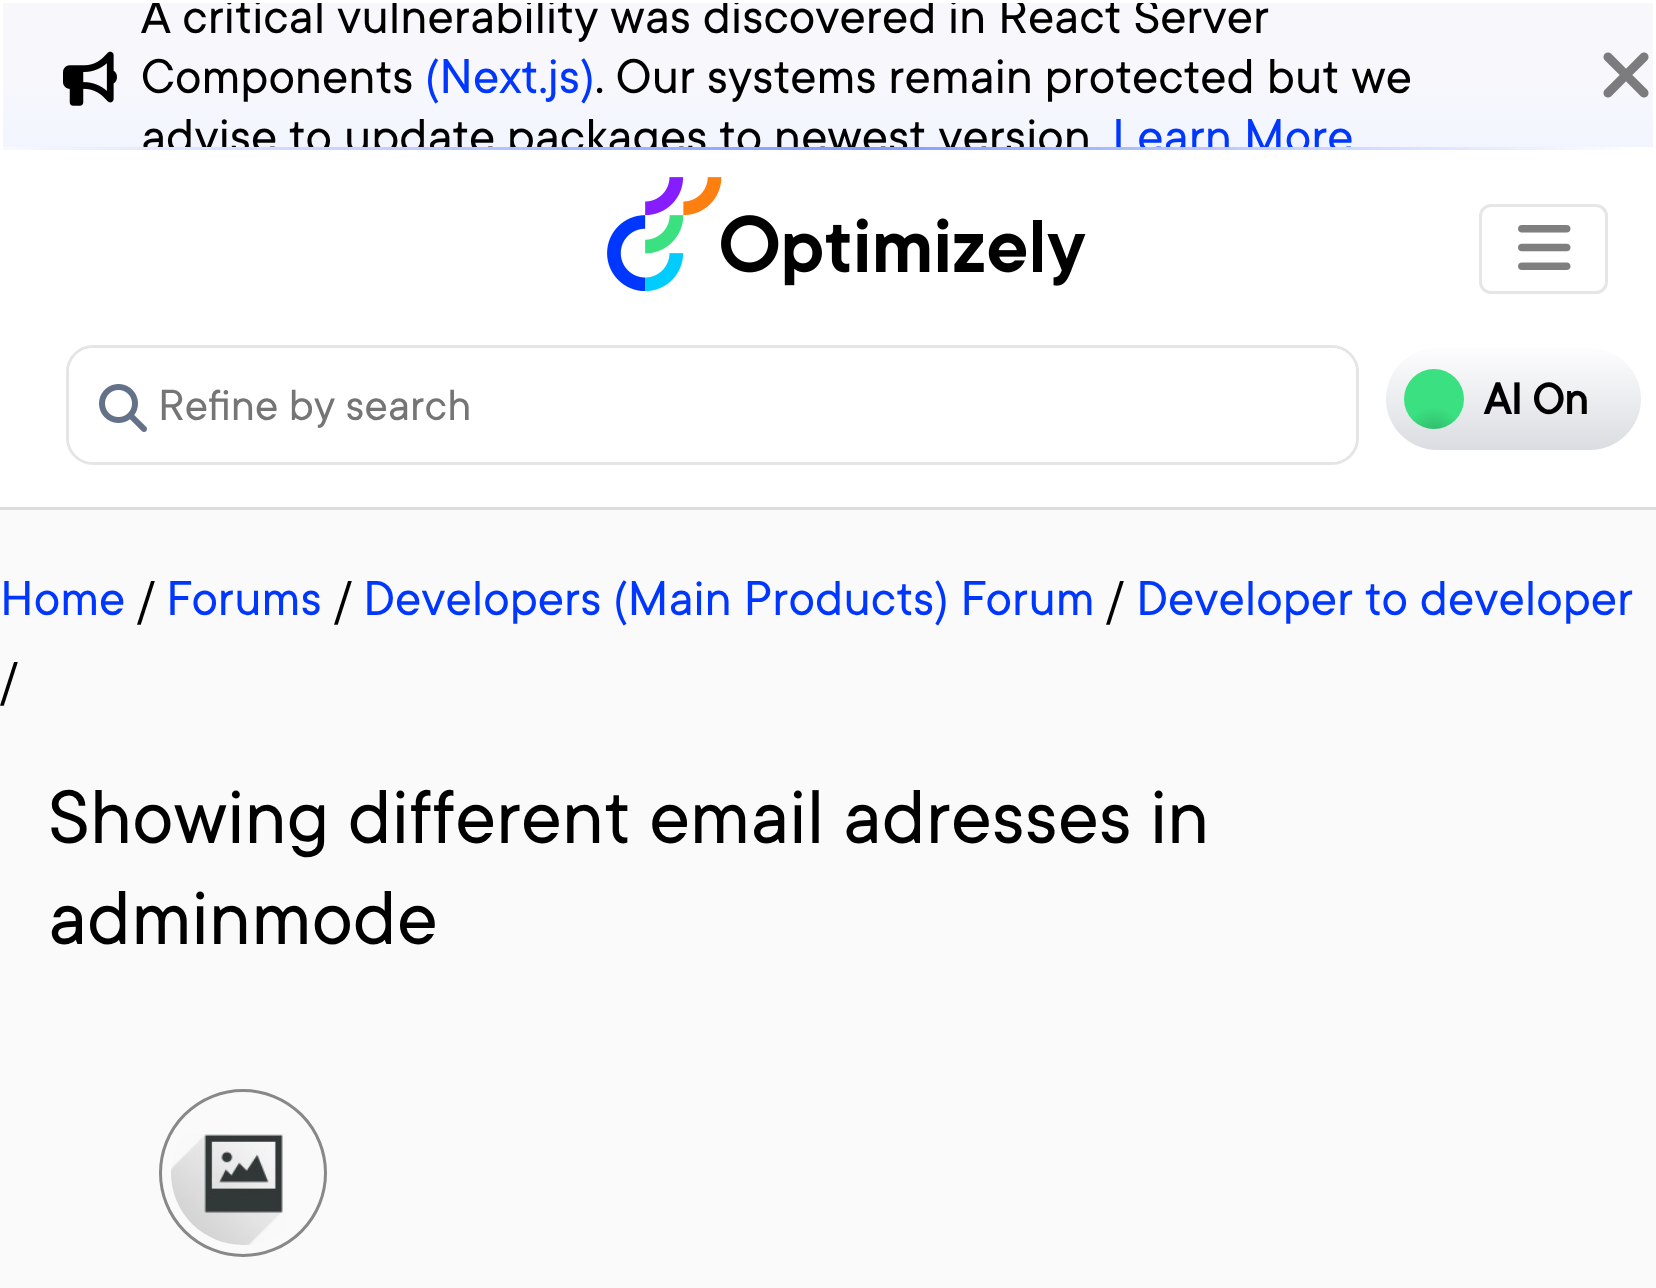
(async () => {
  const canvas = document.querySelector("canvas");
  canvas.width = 1656;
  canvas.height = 1288;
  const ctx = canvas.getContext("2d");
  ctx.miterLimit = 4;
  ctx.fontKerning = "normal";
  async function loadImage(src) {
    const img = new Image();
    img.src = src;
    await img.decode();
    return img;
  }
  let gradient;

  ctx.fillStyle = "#fafafa";
  ctx.fillRect(0, 0, 1656, 1288);
  ctx.fillStyle = "#ffffff";
  ctx.fillRect(0, 0, 1656, 507);
  ctx.drawImage(await loadImage("img/1.png"), 3, 147, 1620, 3);
  gradient = ctx.createLinearGradient(828, 2.9, 828, 176);
  gradient.addColorStop(0.42, "#f8f8fc");
  gradient.addColorStop(1, "#f0f4ff");
  ctx.fillStyle = gradient;
  ctx.fillRect(3, 3, 1650, 144);
  ctx.drawImage(await loadImage("img/2.png"), 63, 51, 54, 55);
  ctx.drawImage(await loadImage("img/3.png"), 1603, 52, 46, 46);
  ctx.fillStyle = "#dddddd";
  ctx.fillRect(0, 507, 1656, 3);
  ctx.drawImage(await loadImage("img/4.png"), 607, 177, 479, 114);
  ctx.beginPath();
  ctx.roundRect(1480.5, 205.5, 126, 87, 10.5);
  ctx.strokeStyle = "#e6e6e6";
  ctx.lineWidth = 3;
  ctx.stroke();
  ctx.drawImage(await loadImage("img/5.png"), 1518, 225, 53, 45);
  ctx.beginPath();
  ctx.roundRect(67.5, 346.5, 1290, 117, 25.5);
  ctx.strokeStyle = "#e5e5e5";
  ctx.stroke();
  ctx.fillStyle = "#ffffff";
  ctx.beginPath();
  ctx.roundRect(69, 348, 1287, 114, 24);
  ctx.fill();
  ctx.drawImage(await loadImage("img/6.png"), 99, 384, 48, 48);
  gradient = ctx.createLinearGradient(1514, 348, 1514, 450);
  gradient.addColorStop(0, "#fdfdfe");
  gradient.addColorStop(1, "#dadde1");
  ctx.fillStyle = gradient;
  ctx.beginPath();
  ctx.roundRect(1386, 348, 255, 102, 51);
  ctx.fill();
  gradient = ctx.createRadialGradient(1434, 437, 0, 1434, 437, 68);
  gradient.addColorStop(0, "#2fb367");
  gradient.addColorStop(0.44, "#3be081");
  ctx.fillStyle = gradient;
  ctx.beginPath();
  ctx.arc(1434, 399, 30, 0, Math.PI * 2);
  ctx.fill();
  ctx.beginPath();
  ctx.arc(243, 1173, 82.5, 0, Math.PI * 2);
  ctx.strokeStyle = "#888888";
  ctx.stroke();
  ctx.drawImage(await loadImage("img/7.png"), 171, 1134, 115, 111);
  ctx.save();
  ctx.beginPath();
  ctx.rect(3, 3, 1650, 144);
  ctx.clip();
  ctx.font = "54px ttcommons";
  ctx.fillStyle = "#000000";
  ctx.fillText("A critical vulnerability was discovered in React Server", 141, 33);
  ctx.restore();
  ctx.font = "54px ttcommons";
  ctx.fillStyle = "#000000";
  ctx.fillText("Components", 141, 93);
  ctx.fillStyle = "#0037ff";
  ctx.fillText("(Next.js)", 425, 93);
  ctx.fillStyle = "#000000";
  ctx.fillText(". Our systems remain protected but we", 595, 93);
  ctx.save();
  ctx.beginPath();
  ctx.rect(3, 3, 1650, 144);
  ctx.clip();
  ctx.fillText("advise to update packages to newest version", 141, 153);
  ctx.fillStyle = "#0037ff";
  ctx.fillText("Learn More", 1112, 153);
  ctx.restore();
  ctx.font = "48px ttcommons";
  ctx.fillStyle = "#757575";
  ctx.fillText("Refine by search", 158, 420);
  ctx.font = "bold 48px ttcommons";
  ctx.fillStyle = "#000000";
  ctx.fillText("AI On", 1484, 414);
  ctx.font = "54px ttcommons";
  ctx.fillStyle = "#0037ff";
  ctx.fillText("Home", 0, 615);
  ctx.fillStyle = "#000000";
  ctx.fillText("/", 137, 615);
  ctx.fillStyle = "#0037ff";
  ctx.fillText("Forums", 166, 615);
  ctx.fillStyle = "#000000";
  ctx.fillText("/", 334, 615);
  ctx.fillStyle = "#0037ff";
  ctx.fillText("Developers (Main Products) Forum", 363, 615);
  ctx.fillStyle = "#000000";
  ctx.fillText("/", 1106, 615);
  ctx.fillStyle = "#0037ff";
  ctx.fillText("Developer to developer", 1136, 615);
  ctx.fillStyle = "#000000";
  ctx.fillText("/", 0, 696);
  ctx.font = "84px ttcommons";
  ctx.fillText("Showing different email adresses in", 48, 843);
  ctx.fillText("adminmode", 48, 944);
})();
